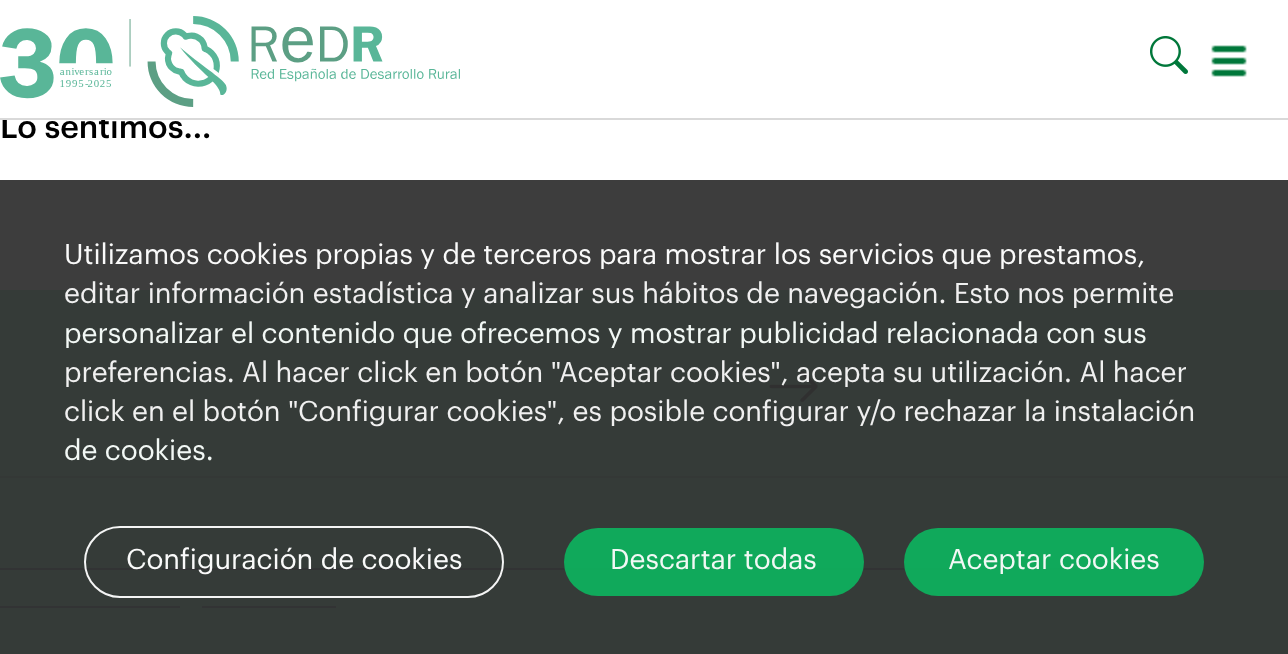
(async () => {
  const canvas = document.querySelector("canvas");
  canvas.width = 1288;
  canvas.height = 654;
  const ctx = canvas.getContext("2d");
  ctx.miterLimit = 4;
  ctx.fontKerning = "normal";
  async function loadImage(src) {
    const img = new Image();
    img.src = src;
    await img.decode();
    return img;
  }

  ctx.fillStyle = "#ffffff";
  ctx.fillRect(0, 0, 1288, 654);
  ctx.fillStyle = "#3d3d3d";
  ctx.fillRect(0, 180, 1288, 110);
  ctx.drawImage(await loadImage("img/1.png"), 0, 16, 460, 91);
  ctx.drawImage(await loadImage("img/2.png"), 1150, 36, 38, 38);
  ctx.drawImage(await loadImage("img/3.png"), 1211, 45, 36, 32);
  for (const [x, y, w, h, color] of [
    [0, 290, 1288, 364, "#353b38"],
    [0, 568, 148, 2, "#323334"],
    [162, 568, 248, 2, "#323334"],
    [432, 568, 282, 2, "#323334"],
  ]) {
    ctx.fillStyle = color;
    ctx.fillRect(x, y, w, h);
  }
  ctx.beginPath();
  ctx.roundRect(85, 527, 418, 70, 35);
  ctx.strokeStyle = "rgba(255, 255, 255, 0.95)";
  ctx.lineWidth = 2;
  ctx.stroke();
  ctx.fillRect(736, 568, 268, 2);
  ctx.fillStyle = "rgba(15, 175, 93, 0.95)";
  ctx.beginPath();
  ctx.roundRect(564, 528, 300, 68, 34);
  ctx.fill();
  ctx.fillStyle = "#323334";
  ctx.fillRect(1026, 568, 116, 2);
  ctx.fillStyle = "rgba(15, 175, 93, 0.95)";
  ctx.beginPath();
  ctx.roundRect(904, 528, 300, 68, 34);
  ctx.fill();
  ctx.fillStyle = "#343836";
  ctx.fillRect(0, 476, 1288, 2);
  ctx.drawImage(await loadImage("img/4.png"), 769, 371, 49, 31);
  ctx.fillStyle = "#323334";
  ctx.fillRect(0, 606, 180, 2);
  ctx.fillRect(202, 606, 134, 2);
  ctx.font = "500 32px Graphik";
  ctx.fillStyle = "#000000";
  ctx.fillText("Lo sentimos...", 0, 138);
  ctx.fillStyle = "#d9d9d9";
  ctx.fillRect(0, 118, 1288, 2);
  ctx.fillStyle = "#ffffff";
  ctx.fillRect(2, 114, 115, 4);
  ctx.font = "28px Graphik";
  ctx.fillStyle = "#fafafa";
  ctx.fillText("Utilizamos cookies propias y de terceros para mostrar los servicios que prestamos,", 64, 264);
  ctx.fillStyle = "#f0f0f0";
  ctx.fillText("editar información estadística y analizar sus hábitos de navegación. Esto nos permite", 64, 303);
  ctx.fillStyle = "#f2f8f5";
  ctx.fillText("personalizar el contenido que ofrecemos y mostrar publicidad relacionada con sus", 64, 343);
  ctx.fillStyle = "#f0f0f0";
  ctx.fillText("preferencias. Al hacer click en botón \"Aceptar cookies\", acepta su utilización. Al hacer", 64, 382);
  ctx.fillText("click en el botón \"Configurar cookies\", es posible configurar y/o rechazar la instalación", 64, 421);
  ctx.fillStyle = "#f2f8f5";
  ctx.fillText("de cookies.", 64, 460);
  ctx.fillStyle = "#fafafa";
  ctx.fillText("Configuración de cookies", 126, 569);
  ctx.fillStyle = "#f2f8f5";
  ctx.fillText("Descartar todas", 610, 569);
  ctx.fillText("Aceptar cookies", 948, 569);
})();
